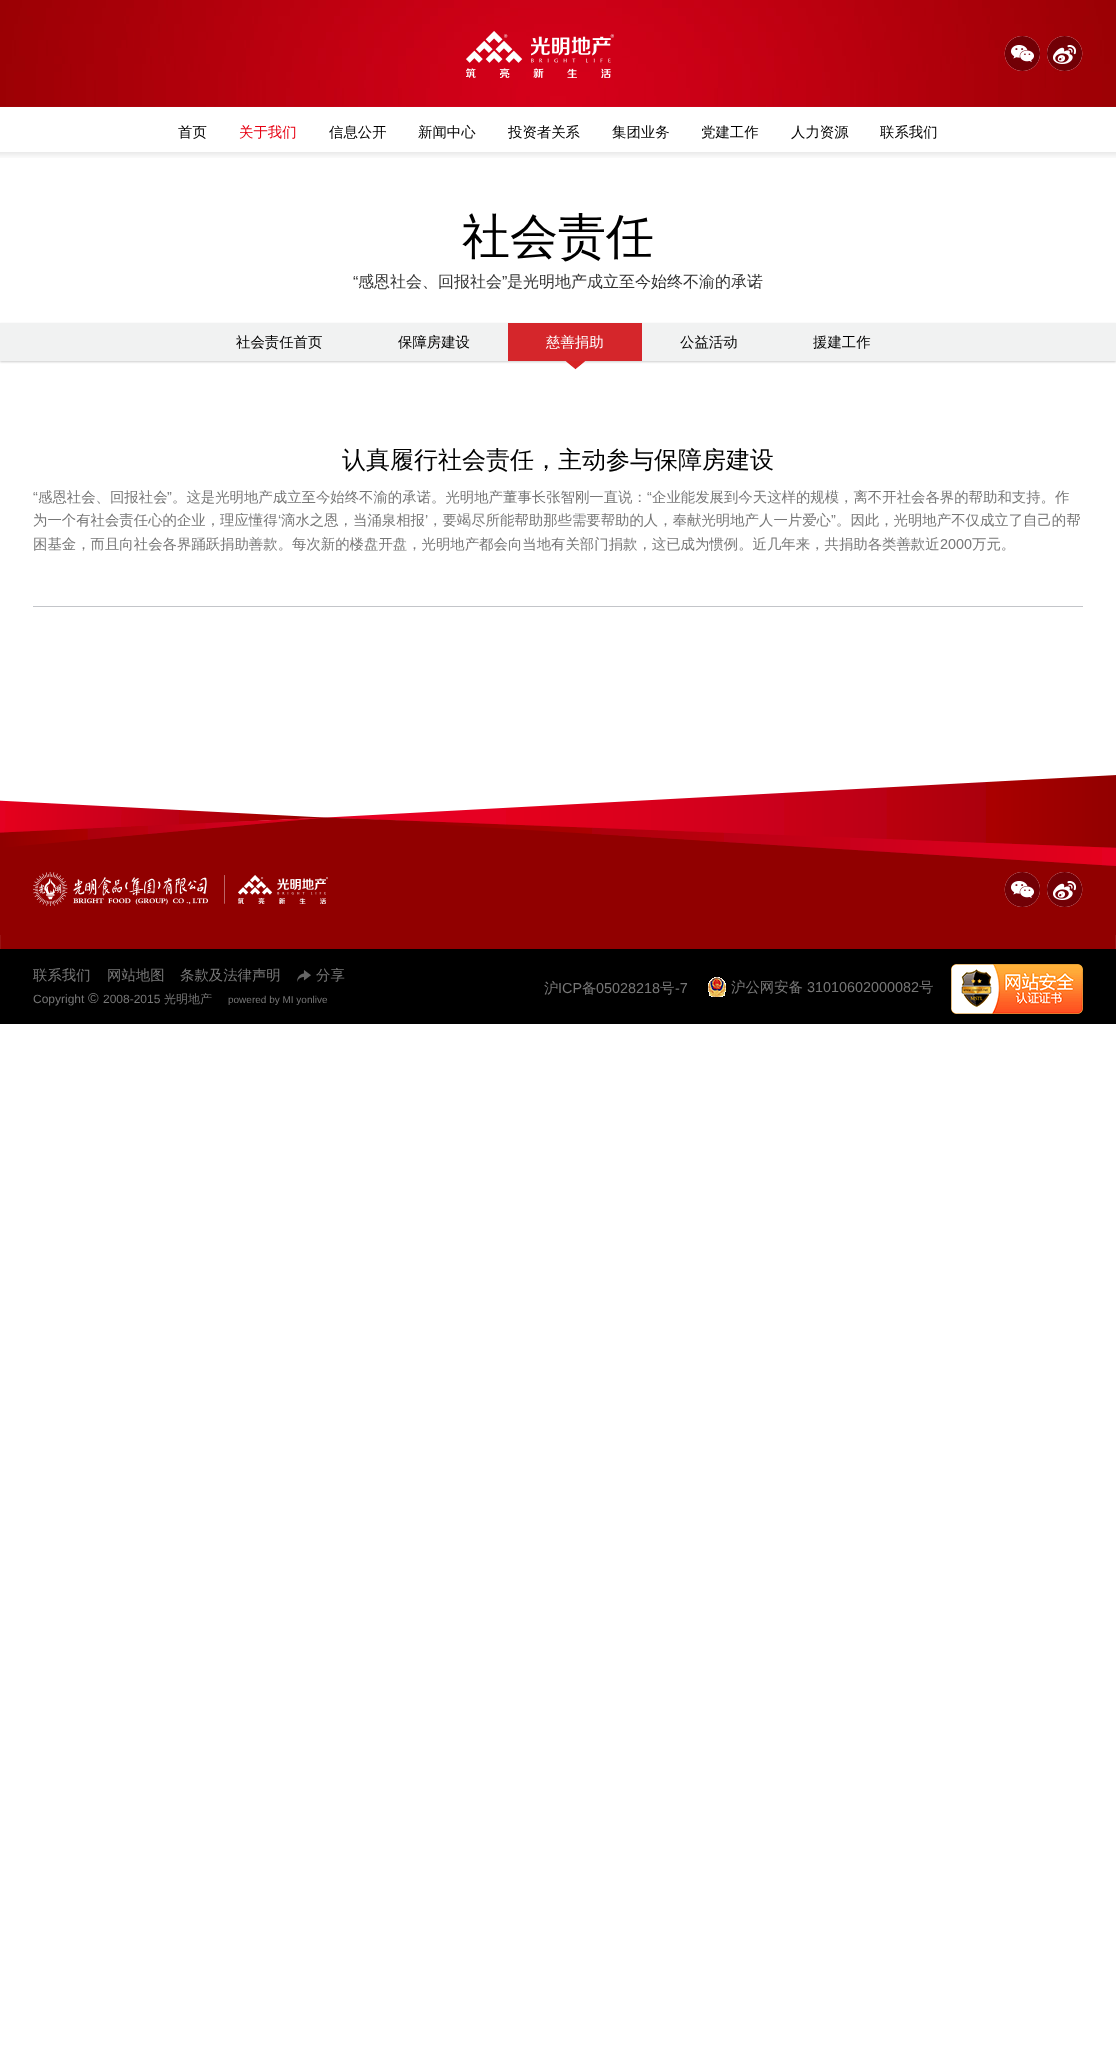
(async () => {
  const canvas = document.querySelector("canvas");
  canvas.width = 1116;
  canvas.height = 2072;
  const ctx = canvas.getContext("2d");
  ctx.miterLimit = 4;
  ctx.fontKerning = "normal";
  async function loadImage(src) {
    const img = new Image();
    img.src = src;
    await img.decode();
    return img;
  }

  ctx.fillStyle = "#ffffff";
  ctx.fillRect(0, 0, 1116, 2072);
  ctx.drawImage(await loadImage("img/1.png"), 0, 0, 1116, 107);
  ctx.drawImage(await loadImage("img/2.png"), 466, 31, 148, 47);
  ctx.drawImage(await loadImage("img/3.png"), 1004, 36, 36, 35);
  ctx.drawImage(await loadImage("img/4.png"), 1047, 36, 36, 35);
  ctx.drawImage(await loadImage("img/5.png"), 0, 152, 1116, 6);
  ctx.fillStyle = "rgba(0, 0, 0, 0.2)";
  ctx.filter = "blur(1px)";
  ctx.beginPath();
  ctx.rect(0, 324, 1116, 38);
  ctx.fill();
  ctx.filter = "none";
  ctx.fillStyle = "#f1f2f2";
  ctx.fillRect(0, 323, 1116, 38);
  ctx.fillStyle = "#d5262b";
  ctx.fillRect(508, 323, 134, 38);
  ctx.drawImage(await loadImage("img/6.png"), 565, 361, 21, 9);
  ctx.fillStyle = "#c3c5c9";
  ctx.fillRect(33, 606, 1050, 1);
  ctx.drawImage(await loadImage("img/7.png"), 0, 775, 1116, 174);
  ctx.drawImage(await loadImage("img/8.png"), 33, 872, 295, 34);
  ctx.drawImage(await loadImage("img/9.png"), 1004, 872, 36, 35);
  ctx.drawImage(await loadImage("img/10.png"), 1047, 872, 36, 35);
  ctx.fillStyle = "#000000";
  ctx.fillRect(0, 949, 1116, 75);
  ctx.drawImage(await loadImage("img/11.png"), 297, 970, 14, 12);
  ctx.drawImage(await loadImage("img/12.png"), 708, 977, 18, 20);
  ctx.drawImage(await loadImage("img/13.png"), 951, 964, 132, 50);
  ctx.font = "500 14.4px WenQuanYi Zen Hei";
  ctx.fillText("首页", 178, 137);
  ctx.fillStyle = "#e60012";
  ctx.fillText("关于我们", 239, 137);
  ctx.fillStyle = "#000000";
  for (const [text, x, y] of [
    ["信息公开", 329, 137],
    ["新闻中心", 418, 137],
    ["投资者关系", 508, 137],
    ["集团业务", 612, 137],
    ["党建工作", 701, 137],
    ["人力资源", 791, 137],
    ["联系我们", 880, 137],
  ]) {
    ctx.fillText(text, x, y);
  }
  ctx.font = "500 48px WenQuanYi Zen Hei";
  ctx.fillText("社会责任", 462, 253);
  ctx.font = "16px Liberation Sans";
  ctx.fillStyle = "#333333";
  ctx.fillText("“", 353, 287);
  ctx.font = "500 16px WenQuanYi Zen Hei";
  ctx.fillText("感恩社会、回报社会", 358, 287);
  ctx.font = "16px Liberation Sans";
  ctx.fillText("”", 502, 287);
  ctx.font = "500 16px WenQuanYi Zen Hei";
  ctx.fillText("是光明地产成立至今始终不渝的承诺", 507, 287);
  ctx.font = "500 14.4px WenQuanYi Zen Hei";
  ctx.fillStyle = "#000000";
  ctx.fillText("社会责任首页", 236, 347);
  ctx.fillText("保障房建设", 398, 347);
  ctx.fillStyle = "#ffffff";
  ctx.fillText("慈善捐助", 546, 347);
  ctx.fillStyle = "#000000";
  ctx.fillText("公益活动", 680, 347);
  ctx.fillText("援建工作", 813, 347);
  ctx.font = "500 24px WenQuanYi Zen Hei";
  ctx.fillText("认真履行社会责任，主动参与保障房建设", 342, 468);
  ctx.font = "14.4px Liberation Sans";
  ctx.fillStyle = "#777777";
  ctx.fillText("“", 33, 502);
  ctx.font = "500 14.4px WenQuanYi Zen Hei";
  ctx.fillText("感恩社会、回报社会", 38, 502);
  ctx.font = "14.4px Liberation Sans";
  ctx.fillText("”", 167, 502);
  ctx.font = "500 14.4px WenQuanYi Zen Hei";
  ctx.fillText("。这是光明地产成立至今始终不渝的承诺。光明地产董事长张智刚一直说：", 172, 502);
  ctx.font = "14.4px Liberation Sans";
  ctx.fillText("“", 647, 502);
  ctx.font = "500 14.4px WenQuanYi Zen Hei";
  ctx.fillText("企业能发展到今天这样的规模，离不开社会各界的帮助和支持。作", 652, 502);
  ctx.fillText("为一个有社会责任心的企业，理应懂得", 33, 525);
  ctx.font = "14.4px Liberation Sans";
  ctx.fillText("‘", 278, 525);
  ctx.font = "500 14.4px WenQuanYi Zen Hei";
  ctx.fillText("滴水之恩，当涌泉相报", 281, 525);
  ctx.font = "14.4px Liberation Sans";
  ctx.fillText("’", 425, 525);
  ctx.font = "500 14.4px WenQuanYi Zen Hei";
  ctx.fillText("，要竭尽所能帮助那些需要帮助的人，奉献光明地产人一片爱心", 428, 525);
  ctx.font = "14.4px Liberation Sans";
  ctx.fillText("”", 831, 525);
  ctx.font = "500 14.4px WenQuanYi Zen Hei";
  ctx.fillText("。因此，光明地产不仅成立了自己的帮", 836, 525);
  ctx.fillText("困基金，而且向社会各界踊跃捐助善款。每次新的楼盘开盘，光明地产都会向当地有关部门捐款，这已成为惯例。近几年来，共捐助各类善款近", 33, 549);
  ctx.font = "14.4px Liberation Sans";
  ctx.fillText("2000", 940, 549);
  ctx.font = "500 14.4px WenQuanYi Zen Hei";
  for (const [text, x, y] of [
    ["万元。", 972, 549],
    ["联系我们", 33, 980],
    ["网站地图", 107, 980],
    ["条款及法律声明", 180, 980],
    ["分享", 316, 980],
  ]) {
    ctx.fillText(text, x, y);
  }
  ctx.font = "12px Liberation Sans";
  ctx.fillText("Copyright", 33, 1003);
  ctx.font = "14.4px Liberation Sans";
  ctx.fillText("©", 88, 1003);
  ctx.font = "12px Liberation Sans";
  ctx.fillText("2008-2015", 103, 1003);
  ctx.font = "500 12px WenQuanYi Zen Hei";
  ctx.fillText("光明地产", 164, 1003);
  ctx.font = "10px Liberation Sans";
  ctx.fillText("powered by MI yonlive", 228, 1003);
  ctx.font = "500 14.4px WenQuanYi Zen Hei";
  ctx.fillText("沪", 544, 993);
  ctx.font = "14.4px Liberation Sans";
  ctx.fillText("ICP", 558, 993);
  ctx.font = "500 14.4px WenQuanYi Zen Hei";
  ctx.fillText("备", 582, 993);
  ctx.font = "14.4px Liberation Sans";
  ctx.fillText("05028218", 596, 993);
  ctx.font = "500 14.4px WenQuanYi Zen Hei";
  ctx.fillText("号", 660, 993);
  ctx.font = "14.4px Liberation Sans";
  ctx.fillText("-7", 675, 993);
  ctx.font = "500 14.4px WenQuanYi Zen Hei";
  ctx.fillText("沪公网安备", 731, 992);
  ctx.font = "14.4px Liberation Sans";
  ctx.fillText("31010602000082", 807, 992);
  ctx.font = "500 14.4px WenQuanYi Zen Hei";
  ctx.fillText("号", 919, 992);
})();
